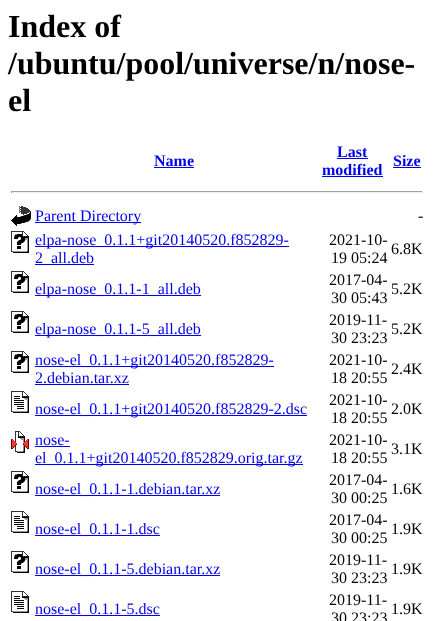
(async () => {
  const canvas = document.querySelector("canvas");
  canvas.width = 434;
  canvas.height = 621;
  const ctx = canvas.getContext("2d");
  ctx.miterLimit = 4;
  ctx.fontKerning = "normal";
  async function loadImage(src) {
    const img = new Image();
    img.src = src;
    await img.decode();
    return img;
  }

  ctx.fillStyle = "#ffffff";
  ctx.fillRect(0, 0, 434, 621);
  for (const [x, y, w, h, color] of [
    [154, 167, 40, 1, "#0000ee"],
    [337, 158, 31, 1, "#0000ee"],
    [322, 176, 61, 1, "#0000ee"],
    [393, 167, 28, 1, "#0000ee"],
    [11, 191, 412, 1, "#9f9f9f"],
    [422, 191, 1, 2, "#eeeeee"],
    [11, 192, 412, 1, "#eeeeee"],
    [11, 191, 1, 2, "#9f9f9f"],
  ]) {
    ctx.fillStyle = color;
    ctx.fillRect(x, y, w, h);
  }
  ctx.drawImage(await loadImage("img/1.png"), 11, 206, 20, 20);
  ctx.fillStyle = "#0000ee";
  ctx.fillRect(35, 222, 106, 1);
  ctx.drawImage(await loadImage("img/2.png"), 11, 231, 18, 22);
  ctx.fillRect(35, 246, 254, 1);
  ctx.fillRect(35, 264, 59, 1);
  ctx.drawImage(await loadImage("img/2.png"), 11, 271, 18, 22);
  ctx.fillRect(35, 295, 166, 1);
  ctx.drawImage(await loadImage("img/2.png"), 11, 311, 18, 22);
  ctx.fillRect(35, 335, 166, 1);
  ctx.drawImage(await loadImage("img/2.png"), 11, 351, 18, 22);
  ctx.fillRect(35, 366, 239, 1);
  ctx.fillRect(35, 384, 94, 1);
  ctx.drawImage(await loadImage("img/3.png"), 11, 391, 18, 22);
  ctx.fillRect(35, 415, 272, 1);
  ctx.drawImage(await loadImage("img/4.png"), 11, 431, 18, 22);
  ctx.fillRect(35, 446, 35, 1);
  ctx.fillRect(35, 464, 268, 1);
  ctx.drawImage(await loadImage("img/2.png"), 11, 471, 18, 22);
  ctx.fillRect(35, 495, 185, 1);
  ctx.drawImage(await loadImage("img/3.png"), 11, 511, 18, 22);
  ctx.fillRect(35, 535, 125, 1);
  ctx.drawImage(await loadImage("img/2.png"), 11, 551, 18, 22);
  ctx.fillRect(35, 575, 185, 1);
  ctx.drawImage(await loadImage("img/3.png"), 11, 591, 18, 22);
  ctx.fillRect(35, 615, 125, 1);
  ctx.font = "bold 32px Liberation Serif";
  ctx.fillStyle = "#000000";
  for (const [text, x, y] of [
    ["Index of", 8, 37],
    ["/ubuntu/pool/universe/n/nose-", 8, 74],
    ["el", 8, 111],
  ]) {
    ctx.fillText(text, x, y);
  }
  ctx.font = "bold 16px Liberation Serif";
  ctx.fillStyle = "#0000ee";
  for (const [text, x, y] of [
    ["Name", 154, 166],
    ["Last", 337, 157],
    ["modified", 322, 175],
    ["Size", 393, 166],
  ]) {
    ctx.fillText(text, x, y);
  }
  ctx.font = "16px Liberation Serif";
  ctx.fillText("Parent Directory", 35, 221);
  ctx.fillStyle = "#000000";
  ctx.fillText("-", 418, 221);
  ctx.fillStyle = "#0000ee";
  ctx.fillText("elpa-nose_0.1.1+git20140520.f852829-", 35, 245);
  ctx.fillText("2_all.deb", 35, 263);
  ctx.fillStyle = "#000000";
  for (const [text, x, y] of [
    ["2021-10-", 329, 245],
    ["19 05:24", 331, 263],
    ["6.8K", 391, 254],
  ]) {
    ctx.fillText(text, x, y);
  }
  ctx.fillStyle = "#0000ee";
  ctx.fillText("elpa-nose_0.1.1-1_all.deb", 35, 294);
  ctx.fillStyle = "#000000";
  for (const [text, x, y] of [
    ["2017-04-", 329, 285],
    ["30 05:43", 331, 303],
    ["5.2K", 391, 294],
  ]) {
    ctx.fillText(text, x, y);
  }
  ctx.fillStyle = "#0000ee";
  ctx.fillText("elpa-nose_0.1.1-5_all.deb", 35, 334);
  ctx.fillStyle = "#000000";
  for (const [text, x, y] of [
    ["2019-11-", 329, 325],
    ["30 23:23", 331, 343],
    ["5.2K", 391, 334],
  ]) {
    ctx.fillText(text, x, y);
  }
  ctx.fillStyle = "#0000ee";
  ctx.fillText("nose-el_0.1.1+git20140520.f852829-", 35, 365);
  ctx.fillText("2.debian.tar.xz", 35, 383);
  ctx.fillStyle = "#000000";
  for (const [text, x, y] of [
    ["2021-10-", 329, 365],
    ["18 20:55", 331, 383],
    ["2.4K", 391, 374],
  ]) {
    ctx.fillText(text, x, y);
  }
  ctx.fillStyle = "#0000ee";
  ctx.fillText("nose-el_0.1.1+git20140520.f852829-2.dsc", 35, 414);
  ctx.fillStyle = "#000000";
  for (const [text, x, y] of [
    ["2021-10-", 329, 405],
    ["18 20:55", 331, 423],
    ["2.0K", 391, 414],
  ]) {
    ctx.fillText(text, x, y);
  }
  ctx.fillStyle = "#0000ee";
  ctx.fillText("nose-", 35, 445);
  ctx.fillText("el_0.1.1+git20140520.f852829.orig.tar.gz", 35, 463);
  ctx.fillStyle = "#000000";
  for (const [text, x, y] of [
    ["2021-10-", 329, 445],
    ["18 20:55", 331, 463],
    ["3.1K", 391, 454],
  ]) {
    ctx.fillText(text, x, y);
  }
  ctx.fillStyle = "#0000ee";
  ctx.fillText("nose-el_0.1.1-1.debian.tar.xz", 35, 494);
  ctx.fillStyle = "#000000";
  for (const [text, x, y] of [
    ["2017-04-", 329, 485],
    ["30 00:25", 331, 503],
    ["1.6K", 391, 494],
  ]) {
    ctx.fillText(text, x, y);
  }
  ctx.fillStyle = "#0000ee";
  ctx.fillText("nose-el_0.1.1-1.dsc", 35, 534);
  ctx.fillStyle = "#000000";
  for (const [text, x, y] of [
    ["2017-04-", 329, 525],
    ["30 00:25", 331, 543],
    ["1.9K", 391, 534],
  ]) {
    ctx.fillText(text, x, y);
  }
  ctx.fillStyle = "#0000ee";
  ctx.fillText("nose-el_0.1.1-5.debian.tar.xz", 35, 574);
  ctx.fillStyle = "#000000";
  for (const [text, x, y] of [
    ["2019-11-", 329, 565],
    ["30 23:23", 331, 583],
    ["1.9K", 391, 574],
  ]) {
    ctx.fillText(text, x, y);
  }
  ctx.fillStyle = "#0000ee";
  ctx.fillText("nose-el_0.1.1-5.dsc", 35, 614);
  ctx.fillStyle = "#000000";
  for (const [text, x, y] of [
    ["2019-11-", 329, 605],
    ["30 23:23", 331, 623],
    ["1.9K", 391, 614],
  ]) {
    ctx.fillText(text, x, y);
  }
})();
